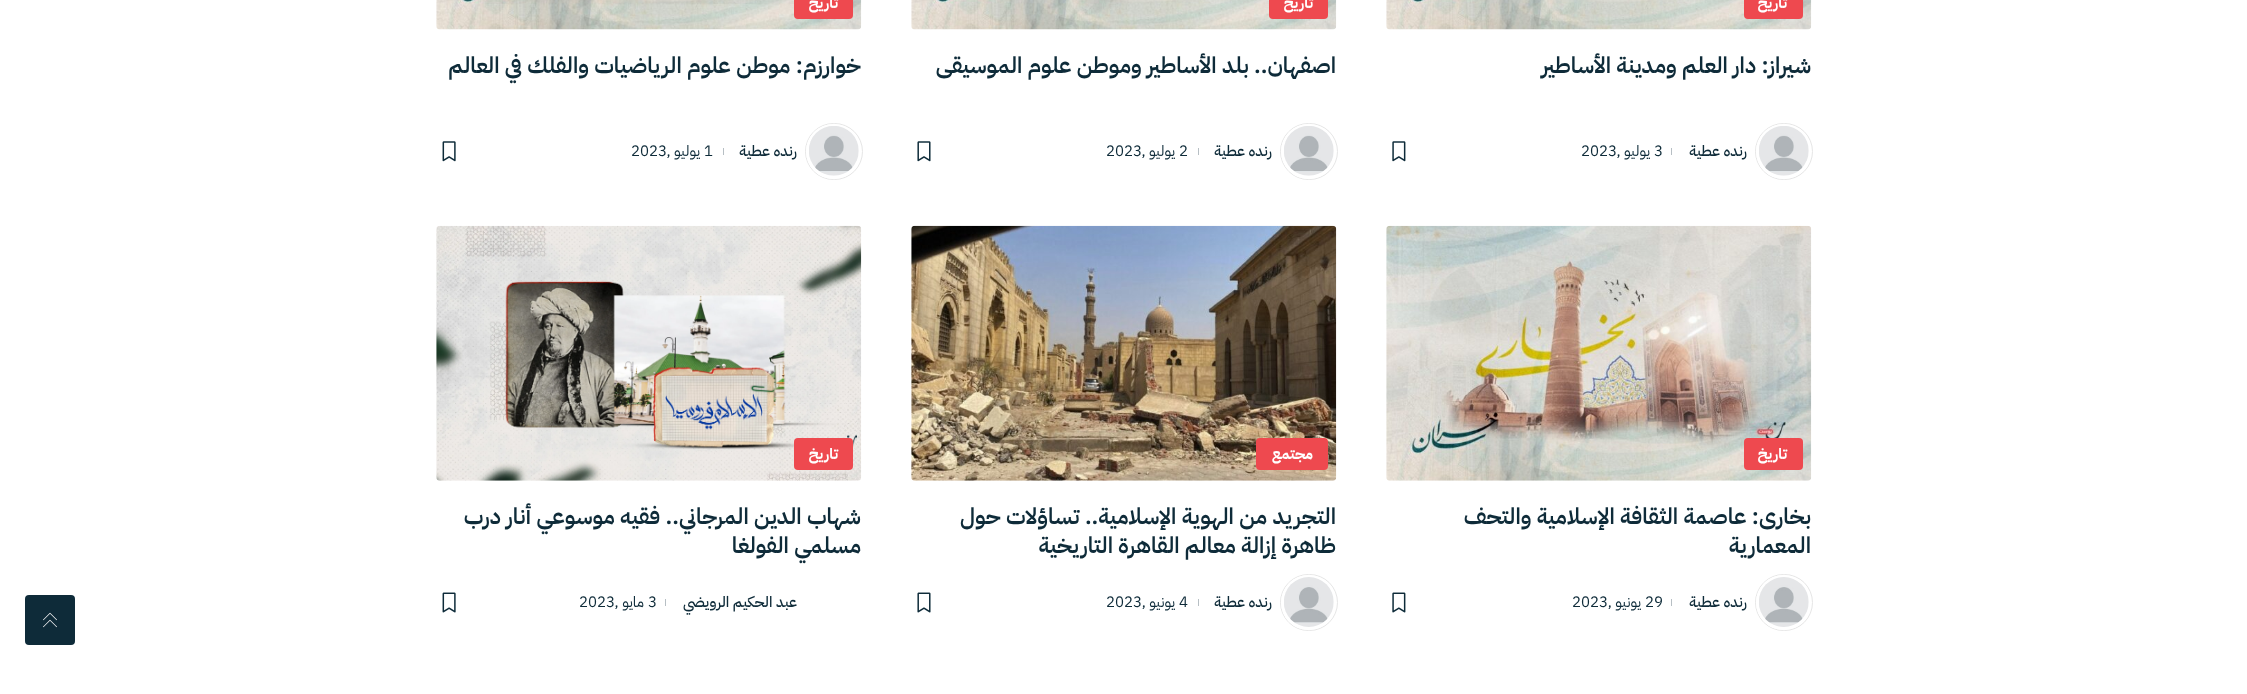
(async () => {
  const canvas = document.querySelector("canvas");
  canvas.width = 2247;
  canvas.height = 694;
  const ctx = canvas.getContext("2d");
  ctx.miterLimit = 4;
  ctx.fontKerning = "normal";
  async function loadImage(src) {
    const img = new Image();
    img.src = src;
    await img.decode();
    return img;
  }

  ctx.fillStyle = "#ffffff";
  ctx.fillRect(0, 0, 2247, 694);
  ctx.drawImage(await loadImage("img/1.png"), 1386, 0, 426, 30);
  ctx.fillStyle = "#ee494f";
  ctx.beginPath();
  ctx.roundRect(1744, -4, 59, 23, 4);
  ctx.fill();
  ctx.beginPath();
  ctx.roundRect(1755.5, 123.5, 57, 56, 28);
  ctx.strokeStyle = "#e6e6e6";
  ctx.stroke();
  ctx.beginPath();
  ctx.arc(1783.5, 151.5, 26, 0, Math.PI * 2);
  ctx.strokeStyle = "#ffffff";
  ctx.lineWidth = 3;
  ctx.stroke();
  ctx.drawImage(await loadImage("img/2.png"), 1759, 126, 50, 50);
  ctx.fillStyle = "#b7bfc4";
  ctx.fillRect(1671, 148, 1, 7);
  ctx.drawImage(await loadImage("img/3.png"), 1392, 141, 14, 21);
  ctx.drawImage(await loadImage("img/4.png"), 911, 0, 426, 30);
  ctx.fillStyle = "#ee494f";
  ctx.beginPath();
  ctx.roundRect(1269, -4, 59, 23, 4);
  ctx.fill();
  ctx.beginPath();
  ctx.roundRect(1280.5, 123.5, 57, 56, 28);
  ctx.strokeStyle = "#e6e6e6";
  ctx.lineWidth = 1;
  ctx.stroke();
  ctx.beginPath();
  ctx.arc(1308.5, 151.5, 26, 0, Math.PI * 2);
  ctx.strokeStyle = "#ffffff";
  ctx.lineWidth = 3;
  ctx.stroke();
  ctx.drawImage(await loadImage("img/5.png"), 1284, 126, 50, 50);
  ctx.fillStyle = "#b7bfc4";
  ctx.fillRect(1198, 148, 1, 7);
  ctx.drawImage(await loadImage("img/6.png"), 917, 141, 14, 21);
  ctx.drawImage(await loadImage("img/7.png"), 436, 0, 426, 30);
  ctx.fillStyle = "#ee494f";
  ctx.beginPath();
  ctx.roundRect(794, -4, 59, 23, 4);
  ctx.fill();
  ctx.beginPath();
  ctx.roundRect(805.5, 123.5, 57, 56, 28);
  ctx.strokeStyle = "#e6e6e6";
  ctx.lineWidth = 1;
  ctx.stroke();
  ctx.beginPath();
  ctx.arc(833.5, 151.5, 26, 0, Math.PI * 2);
  ctx.strokeStyle = "#ffffff";
  ctx.lineWidth = 3;
  ctx.stroke();
  ctx.drawImage(await loadImage("img/5.png"), 809, 126, 50, 50);
  ctx.fillStyle = "#b7bfc4";
  ctx.fillRect(723, 148, 1, 7);
  ctx.drawImage(await loadImage("img/8.png"), 442, 141, 14, 21);
  ctx.drawImage(await loadImage("img/9.png"), 1386, 225, 426, 256);
  ctx.fillStyle = "#ee494f";
  ctx.beginPath();
  ctx.roundRect(1744, 438, 59, 32, 4);
  ctx.fill();
  ctx.beginPath();
  ctx.roundRect(1755.5, 574.5, 57, 56, 28);
  ctx.strokeStyle = "#e6e6e6";
  ctx.lineWidth = 1;
  ctx.stroke();
  ctx.beginPath();
  ctx.arc(1783.5, 602.5, 26, 0, Math.PI * 2);
  ctx.strokeStyle = "#ffffff";
  ctx.lineWidth = 3;
  ctx.stroke();
  ctx.drawImage(await loadImage("img/10.png"), 1759, 577, 50, 50);
  ctx.fillStyle = "#b7bfc4";
  ctx.fillRect(1671, 599, 1, 7);
  ctx.drawImage(await loadImage("img/11.png"), 1392, 592, 14, 21);
  ctx.drawImage(await loadImage("img/12.png"), 911, 225, 426, 256);
  ctx.fillStyle = "#ee494f";
  ctx.beginPath();
  ctx.roundRect(1256, 438, 72, 32, 4);
  ctx.fill();
  ctx.beginPath();
  ctx.roundRect(1280.5, 574.5, 57, 56, 28);
  ctx.strokeStyle = "#e6e6e6";
  ctx.lineWidth = 1;
  ctx.stroke();
  ctx.beginPath();
  ctx.arc(1308.5, 602.5, 26, 0, Math.PI * 2);
  ctx.strokeStyle = "#ffffff";
  ctx.lineWidth = 3;
  ctx.stroke();
  ctx.drawImage(await loadImage("img/13.png"), 1284, 577, 50, 50);
  ctx.fillStyle = "#b7bfc4";
  ctx.fillRect(1198, 599, 1, 7);
  ctx.drawImage(await loadImage("img/14.png"), 917, 592, 14, 21);
  ctx.drawImage(await loadImage("img/15.png"), 436, 225, 426, 256);
  ctx.fillStyle = "#ee494f";
  ctx.beginPath();
  ctx.roundRect(794, 438, 59, 32, 4);
  ctx.fill();
  ctx.fillStyle = "#b7bfc4";
  ctx.fillRect(665, 599, 1, 7);
  ctx.drawImage(await loadImage("img/16.png"), 442, 592, 14, 21);
  ctx.fillStyle = "#0e2b39";
  ctx.beginPath();
  ctx.roundRect(25, 595, 50, 50, 4);
  ctx.fill();
  ctx.drawImage(await loadImage("img/17.png"), 43, 612, 14, 16);
  ctx.direction = "rtl";
  ctx.font = "bold 15px IBM Plex Sans Arabic";
  ctx.fillStyle = "#ffffff";
  ctx.fillText("تاريخ", 1787, 8);
  ctx.font = "600 22.5px IBM Plex Sans Arabic";
  ctx.fillStyle = "#0e2b39";
  ctx.fillText("شيراز: دار العلم ومدينة الأساطير", 1811, 73);
  ctx.font = "500 15px IBM Plex Sans Arabic";
  ctx.fillText("رنده عطية", 1747, 156);
  ctx.direction = "ltr";
  ctx.font = "15px IBM Plex Sans Arabic";
  ctx.fillText("3", 1654, 156);
  ctx.direction = "rtl";
  ctx.fillText("يوليو ,", 1650, 156);
  ctx.direction = "ltr";
  ctx.fillText("2023", 1581, 156);
  ctx.direction = "rtl";
  ctx.font = "bold 15px IBM Plex Sans Arabic";
  ctx.fillStyle = "#ffffff";
  ctx.fillText("تاريخ", 1313, 8);
  ctx.font = "600 22.5px IBM Plex Sans Arabic";
  ctx.fillStyle = "#0e2b39";
  ctx.fillText("اصفهان.. بلد الأساطير وموطن علوم الموسيقى", 1336, 73);
  ctx.font = "500 15px IBM Plex Sans Arabic";
  ctx.fillText("رنده عطية", 1272, 156);
  ctx.direction = "ltr";
  ctx.font = "15px IBM Plex Sans Arabic";
  ctx.fillText("2", 1179, 156);
  ctx.direction = "rtl";
  ctx.fillText("يوليو ,", 1175, 156);
  ctx.direction = "ltr";
  ctx.fillText("2023", 1106, 156);
  ctx.direction = "rtl";
  ctx.font = "bold 15px IBM Plex Sans Arabic";
  ctx.fillStyle = "#ffffff";
  ctx.fillText("تاريخ", 838, 8);
  ctx.font = "600 22.5px IBM Plex Sans Arabic";
  ctx.fillStyle = "#0e2b39";
  ctx.fillText("خوارزم: موطن علوم الرياضيات والفلك في العالم", 861, 73);
  ctx.font = "500 15px IBM Plex Sans Arabic";
  ctx.fillText("رنده عطية", 797, 156);
  ctx.direction = "ltr";
  ctx.font = "15px IBM Plex Sans Arabic";
  ctx.fillText("1", 704, 156);
  ctx.direction = "rtl";
  ctx.fillText("يوليو ,", 700, 156);
  ctx.direction = "ltr";
  ctx.fillText("2023", 631, 156);
  ctx.direction = "rtl";
  ctx.font = "bold 15px IBM Plex Sans Arabic";
  ctx.fillStyle = "#ffffff";
  ctx.fillText("تاريخ", 1787, 459);
  ctx.font = "600 22.5px IBM Plex Sans Arabic";
  ctx.fillStyle = "#0e2b39";
  ctx.fillText("بخارى: عاصمة الثقافة الإسلامية والتحف", 1811, 524);
  ctx.fillText("المعمارية", 1811, 553);
  ctx.font = "500 15px IBM Plex Sans Arabic";
  ctx.fillText("رنده عطية", 1747, 607);
  ctx.direction = "ltr";
  ctx.font = "15px IBM Plex Sans Arabic";
  ctx.fillText("29", 1645, 607);
  ctx.direction = "rtl";
  ctx.fillText("يونيو ,", 1641, 607);
  ctx.direction = "ltr";
  ctx.fillText("2023", 1572, 607);
  ctx.direction = "rtl";
  ctx.font = "bold 15px IBM Plex Sans Arabic";
  ctx.fillStyle = "#ffffff";
  ctx.fillText("مجتمع", 1313, 459);
  ctx.font = "600 22.5px IBM Plex Sans Arabic";
  ctx.fillStyle = "#0e2b39";
  ctx.fillText("التجريد من الهوية الإسلامية.. تساؤلات حول", 1336, 524);
  ctx.fillText("ظاهرة إزالة معالم القاهرة التاريخية", 1336, 553);
  ctx.font = "500 15px IBM Plex Sans Arabic";
  ctx.fillText("رنده عطية", 1272, 607);
  ctx.direction = "ltr";
  ctx.font = "15px IBM Plex Sans Arabic";
  ctx.fillText("4", 1179, 607);
  ctx.direction = "rtl";
  ctx.fillText("يونيو ,", 1175, 607);
  ctx.direction = "ltr";
  ctx.fillText("2023", 1106, 607);
  ctx.direction = "rtl";
  ctx.font = "bold 15px IBM Plex Sans Arabic";
  ctx.fillStyle = "#ffffff";
  ctx.fillText("تاريخ", 838, 459);
  ctx.font = "600 22.5px IBM Plex Sans Arabic";
  ctx.fillStyle = "#0e2b39";
  ctx.fillText("شهاب الدين المرجاني.. فقيه موسوعي أنار درب", 861, 524);
  ctx.fillText("مسلمي الفولغا", 861, 553);
  ctx.font = "500 15px IBM Plex Sans Arabic";
  ctx.fillText("عبد الحكيم الرويضي", 797, 607);
  ctx.direction = "ltr";
  ctx.font = "15px IBM Plex Sans Arabic";
  ctx.fillText("3", 648, 607);
  ctx.direction = "rtl";
  ctx.fillText("مايو ,", 644, 607);
  ctx.direction = "ltr";
  ctx.fillText("2023", 579, 607);
})();
